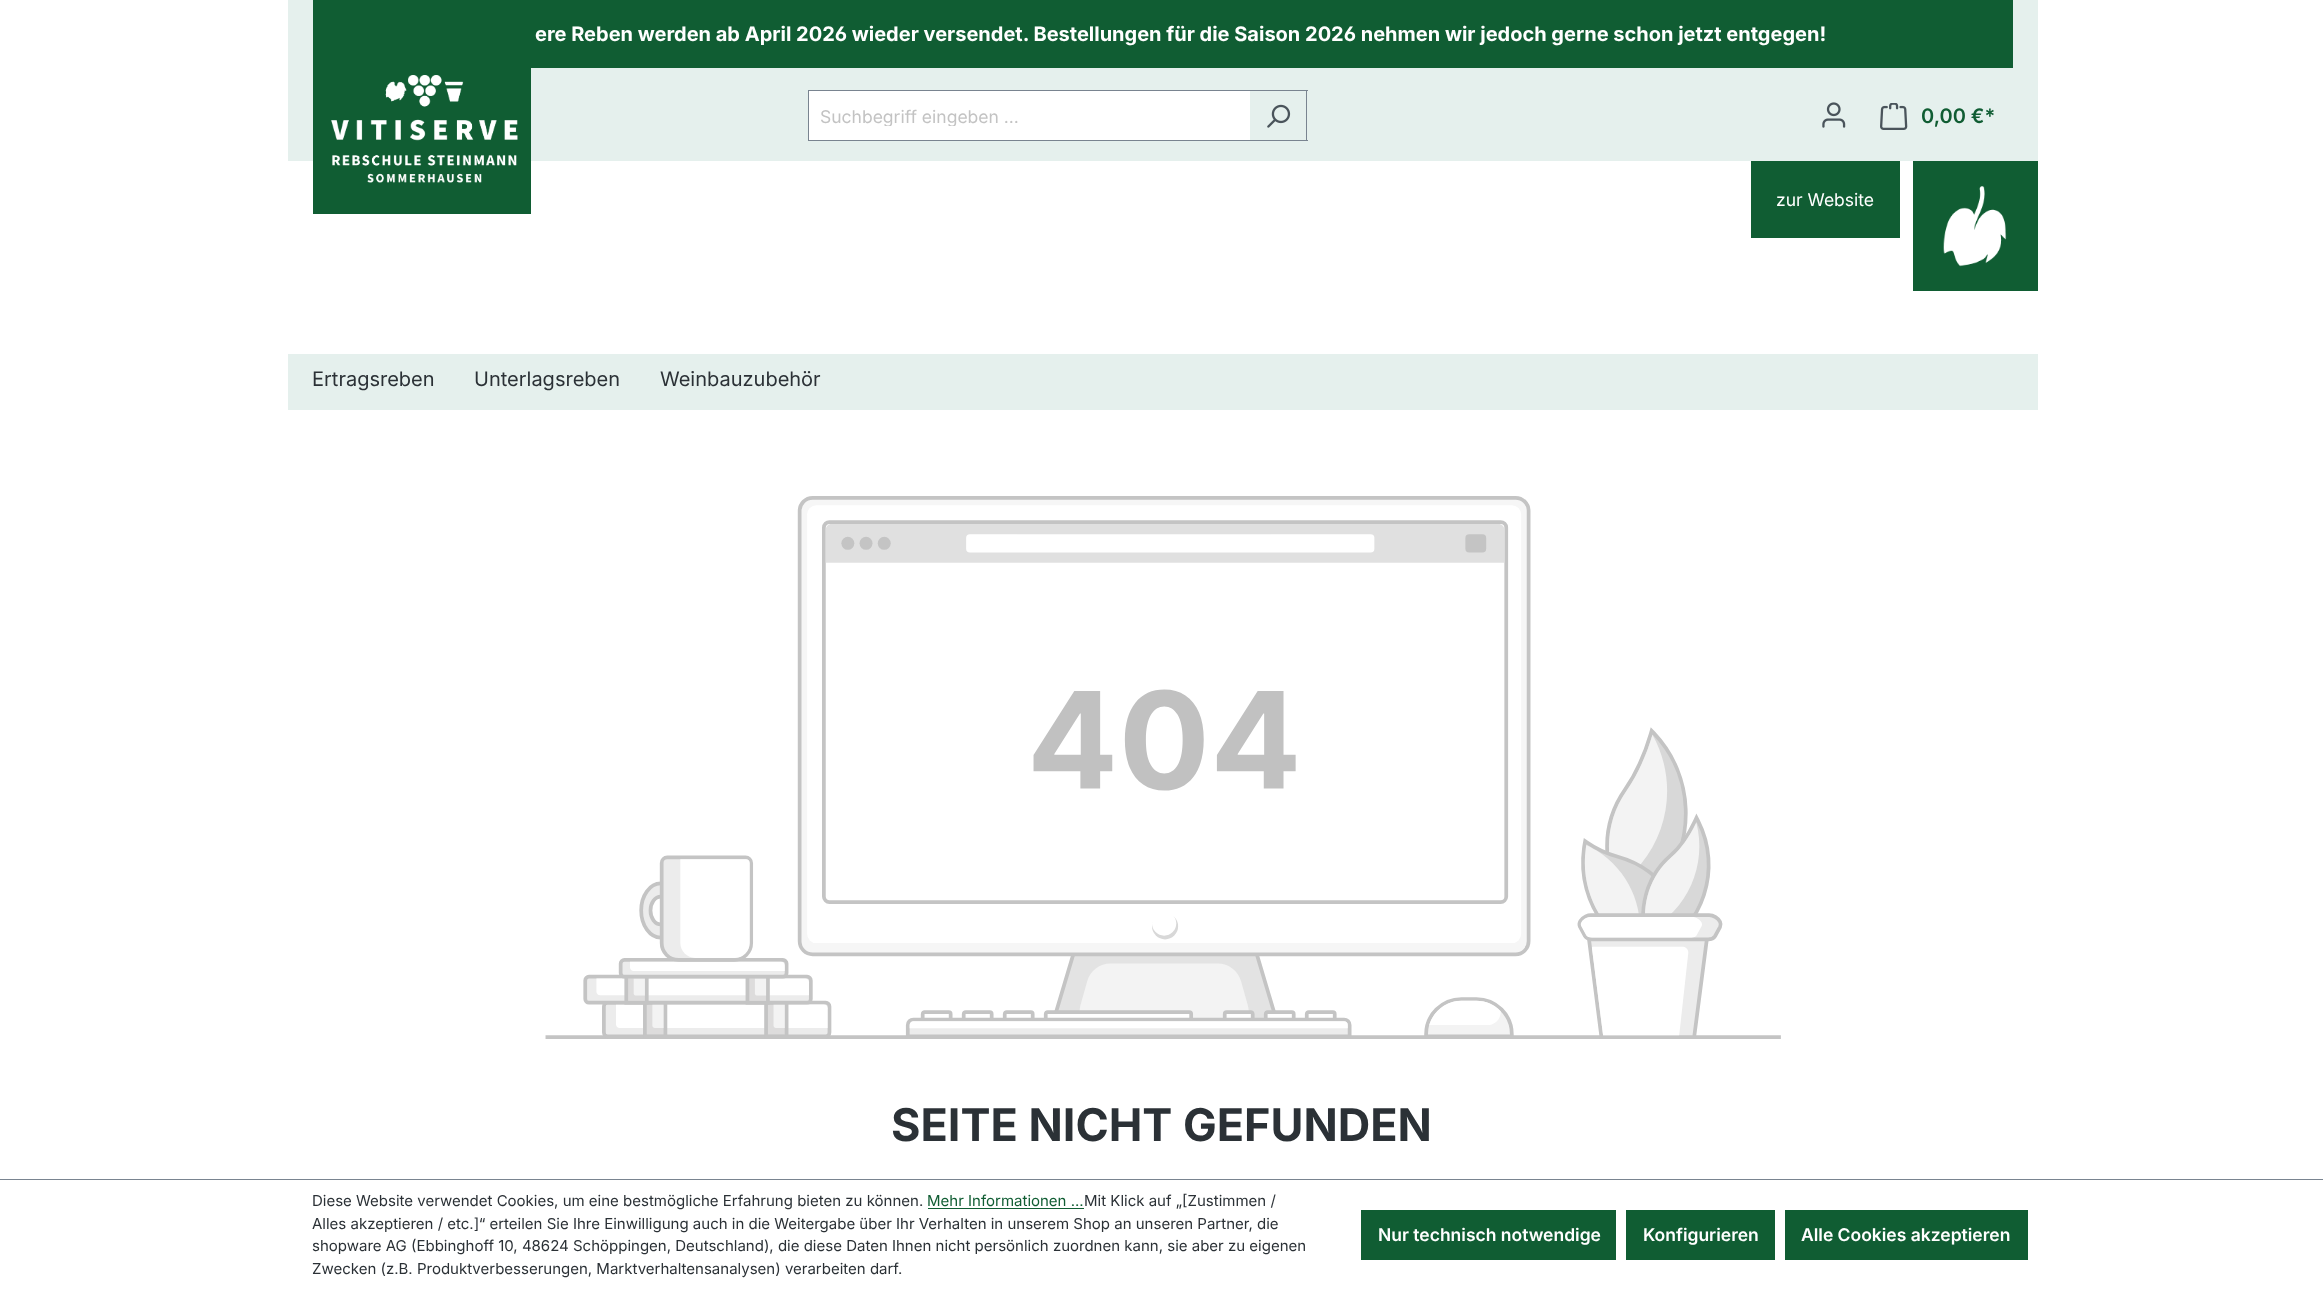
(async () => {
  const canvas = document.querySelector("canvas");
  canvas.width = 2323;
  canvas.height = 1289;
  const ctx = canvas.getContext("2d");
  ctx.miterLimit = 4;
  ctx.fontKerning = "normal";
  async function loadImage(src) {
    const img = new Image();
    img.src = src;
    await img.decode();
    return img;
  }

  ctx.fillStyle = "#ffffff";
  ctx.fillRect(0, 0, 2323, 1289);
  for (const [x, y, w, h, color] of [
    [288, 0, 1750, 161, "#e5f0ed"],
    [531, 0, 1482, 68, "#105d33"],
    [313, 0, 218, 214, "#105d33"],
  ]) {
    ctx.fillStyle = color;
    ctx.fillRect(x, y, w, h);
  }
  ctx.drawImage(await loadImage("img/1.png"), 331, 75, 187, 108);
  for (const [x, y, w, h, color] of [
    [809, 91, 441, 49, "#ffffff"],
    [808, 90, 500, 1, "#798490"],
    [808, 140, 442, 1, "#798490"],
    [808, 90, 1, 51, "#798490"],
    [1306, 90, 1, 51, "#798490"],
    [1249, 140, 59, 1, "#798490"],
  ]) {
    ctx.fillStyle = color;
    ctx.fillRect(x, y, w, h);
  }
  ctx.drawImage(await loadImage("img/2.png"), 1267, 104, 24, 24);
  ctx.drawImage(await loadImage("img/3.png"), 1822, 102, 24, 26);
  ctx.drawImage(await loadImage("img/4.png"), 1880, 103, 28, 27);
  ctx.fillStyle = "#105d33";
  ctx.fillRect(1751, 161, 149, 77);
  ctx.fillRect(1913, 161, 125, 130);
  ctx.drawImage(await loadImage("img/5.png"), 1943, 186, 64, 81);
  ctx.fillStyle = "#e5f0ed";
  ctx.fillRect(288, 354, 1750, 56);
  ctx.drawImage(await loadImage("img/6.png"), 545, 496, 1236, 543);
  for (const [x, y, w, h, color] of [
    [0, 1179, 2323, 1, "#798490"],
    [928, 1208, 156, 1, "#105d33"],
    [1361, 1210, 255, 50, "#105d33"],
    [1626, 1210, 149, 50, "#105d33"],
    [1785, 1210, 243, 50, "#105d33"],
  ]) {
    ctx.fillStyle = color;
    ctx.fillRect(x, y, w, h);
  }
  ctx.font = "bold 20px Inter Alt";
  ctx.fillStyle = "#ffffff";
  ctx.fillText("ere Reben werden ab April 2026 wieder versendet. Bestellungen für die Saison 2026 nehmen wir jedoch gerne schon jetzt entgegen!", 535, 41);
  ctx.save();
  ctx.beginPath();
  ctx.rect(820, 105, 419, 21);
  ctx.clip();
  ctx.font = "17.5px Inter";
  ctx.fillStyle = "#c3c3c3";
  ctx.fillText("Suchbegriff eingeben ...", 820, 123);
  ctx.restore();
  ctx.font = "600 20px Inter";
  ctx.fillStyle = "#105d33";
  ctx.fillText("0,00 €*", 1921, 123);
  ctx.font = "17.5px Inter";
  ctx.fillStyle = "#ffffff";
  ctx.fillText("zur Website", 1776, 206);
  ctx.font = "20px Inter";
  ctx.fillStyle = "#2b3136";
  for (const [text, x, y] of [
    ["Ertragsreben", 312, 386],
    ["Unterlagsreben", 474, 386],
    ["Weinbauzubehör", 660, 386],
  ]) {
    ctx.fillText(text, x, y);
  }
  ctx.font = "bold 45px Inter";
  ctx.fillText("SEITE NICHT GEFUNDEN", 891, 1141);
  ctx.font = "15px Inter";
  ctx.fillText("Diese Website verwendet Cookies, um eine bestmögliche Erfahrung bieten zu können.", 312, 1206);
  ctx.fillStyle = "#105d33";
  ctx.fillText("Mehr Informationen ...", 927, 1206);
  ctx.fillStyle = "#2b3136";
  for (const [text, x, y] of [
    ["Mit Klick auf „[Zustimmen /", 1084, 1206],
    ["Alles akzeptieren / etc.]“ erteilen Sie Ihre Einwilligung auch in die Weitergabe über Ihr Verhalten in unserem Shop an unseren Partner, die", 312, 1229],
    ["shopware AG (Ebbinghoff 10, 48624 Schöppingen, Deutschland), die diese Daten Ihnen nicht persönlich zuordnen kann, sie aber zu eigenen", 312, 1251],
    ["Zwecken (z.B. Produktverbesserungen, Marktverhaltensanalysen) verarbeiten darf.", 312, 1274],
  ]) {
    ctx.fillText(text, x, y);
  }
  ctx.font = "600 17.5px Inter";
  ctx.fillStyle = "#ffffff";
  for (const [text, x, y] of [
    ["Nur technisch notwendige", 1378, 1241],
    ["Konfigurieren", 1643, 1241],
    ["Alle Cookies akzeptieren", 1801, 1241],
  ]) {
    ctx.fillText(text, x, y);
  }
})();
